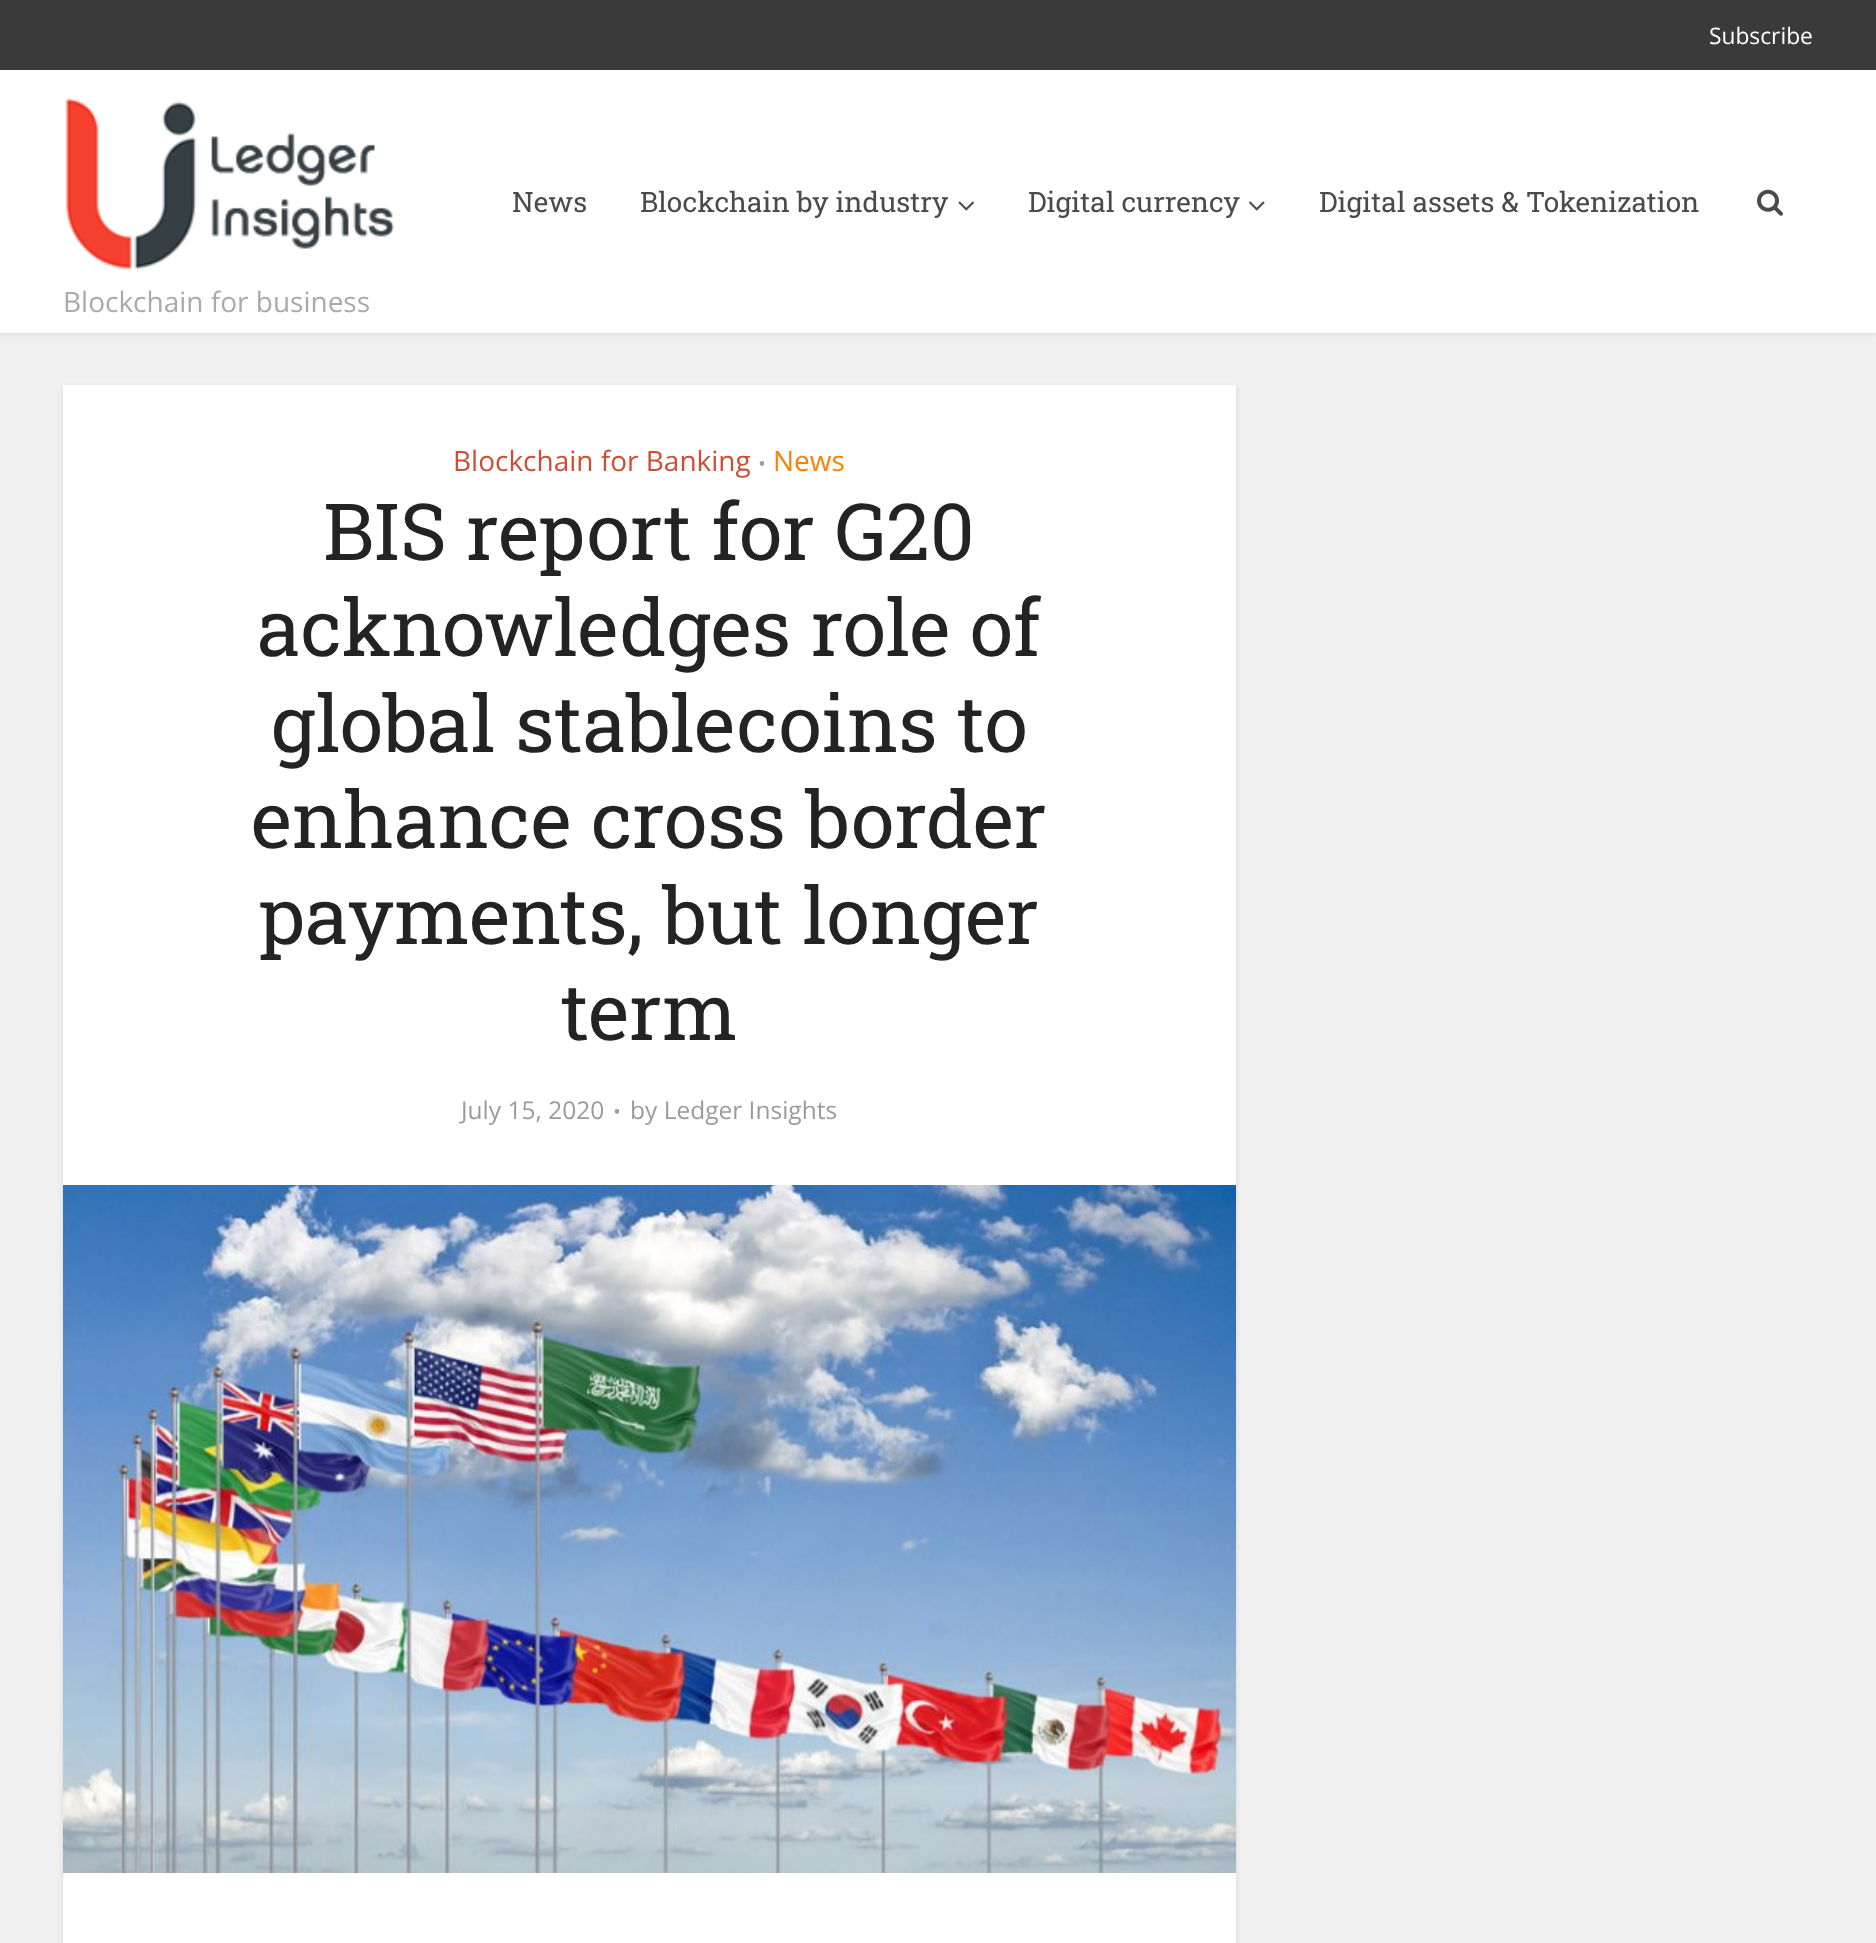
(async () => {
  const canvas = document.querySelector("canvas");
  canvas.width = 1876;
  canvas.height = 1943;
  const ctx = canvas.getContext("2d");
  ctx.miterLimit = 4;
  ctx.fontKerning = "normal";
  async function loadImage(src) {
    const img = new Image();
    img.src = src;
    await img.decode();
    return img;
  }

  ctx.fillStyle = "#f0f0f0";
  ctx.fillRect(0, 0, 1876, 1943);
  ctx.fillStyle = "rgba(0, 0, 0, 0.1)";
  ctx.filter = "blur(2.5px)";
  ctx.beginPath();
  ctx.rect(0, 2, 1876, 332);
  ctx.fill();
  ctx.filter = "none";
  ctx.fillStyle = "#ffffff";
  ctx.fillRect(0, 70, 1876, 263);
  ctx.fillStyle = "#3a3a3a";
  ctx.fillRect(0, 0, 1876, 70);
  ctx.drawImage(await loadImage("img/1.png"), 958, 201, 16, 10);
  ctx.drawImage(await loadImage("img/2.png"), 1249, 201, 16, 10);
  ctx.drawImage(await loadImage("img/3.png"), 1757, 189, 26, 27);
  ctx.drawImage(await loadImage("img/4.png"), 64, 97, 331, 173);
  ctx.fillStyle = "rgba(0, 0, 0, 0.1)";
  ctx.filter = "blur(2.5px)";
  ctx.beginPath();
  ctx.rect(63, 387, 1173, 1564);
  ctx.fill();
  ctx.filter = "none";
  ctx.fillStyle = "#ffffff";
  ctx.fillRect(63, 385, 1173, 1558);
  ctx.drawImage(await loadImage("img/5.png"), 63, 1185, 1173, 688);
  ctx.font = "22.75px Open Sans";
  ctx.fillText("Subscribe", 1709, 44);
  ctx.font = "28px Roboto Slab";
  ctx.fillStyle = "#4a4a4a";
  for (const [text, x, y] of [
    ["News", 512, 212],
    ["Blockchain by industry", 640, 212],
    ["Digital currency", 1028, 212],
    ["Digital assets & Tokenization", 1319, 212],
  ]) {
    ctx.fillText(text, x, y);
  }
  ctx.font = "28px Open Sans";
  ctx.fillStyle = "#aaaaaa";
  ctx.fillText("Blockchain for business", 63, 312);
  ctx.fillStyle = "#cf4d35";
  ctx.fillText("Blockchain for Banking", 453, 471);
  ctx.font = "21px Open Sans";
  ctx.fillStyle = "#9b9b9b";
  ctx.fillText("•", 758, 471);
  ctx.font = "28px Open Sans";
  ctx.fillStyle = "#ff7f00";
  ctx.fillText("News", 773, 471);
  ctx.font = "78.75px Roboto Slab";
  ctx.fillStyle = "#232323";
  for (const [text, x, y] of [
    ["BIS report for G20", 323, 560],
    ["acknowledges role of", 257, 656],
    ["global stablecoins to", 271, 752],
    ["enhance cross border", 251, 848],
    ["payments, but longer", 259, 944],
    ["term", 561, 1040],
  ]) {
    ctx.fillText(text, x, y);
  }
  ctx.font = "24.5px Open Sans";
  ctx.fillStyle = "#9b9b9b";
  ctx.fillText("July 15, 2020", 461, 1119);
  ctx.font = "21px Open Sans";
  ctx.fillText("•", 613, 1119);
  ctx.font = "24.5px Open Sans";
  ctx.fillText("by Ledger Insights", 630, 1119);
})();
